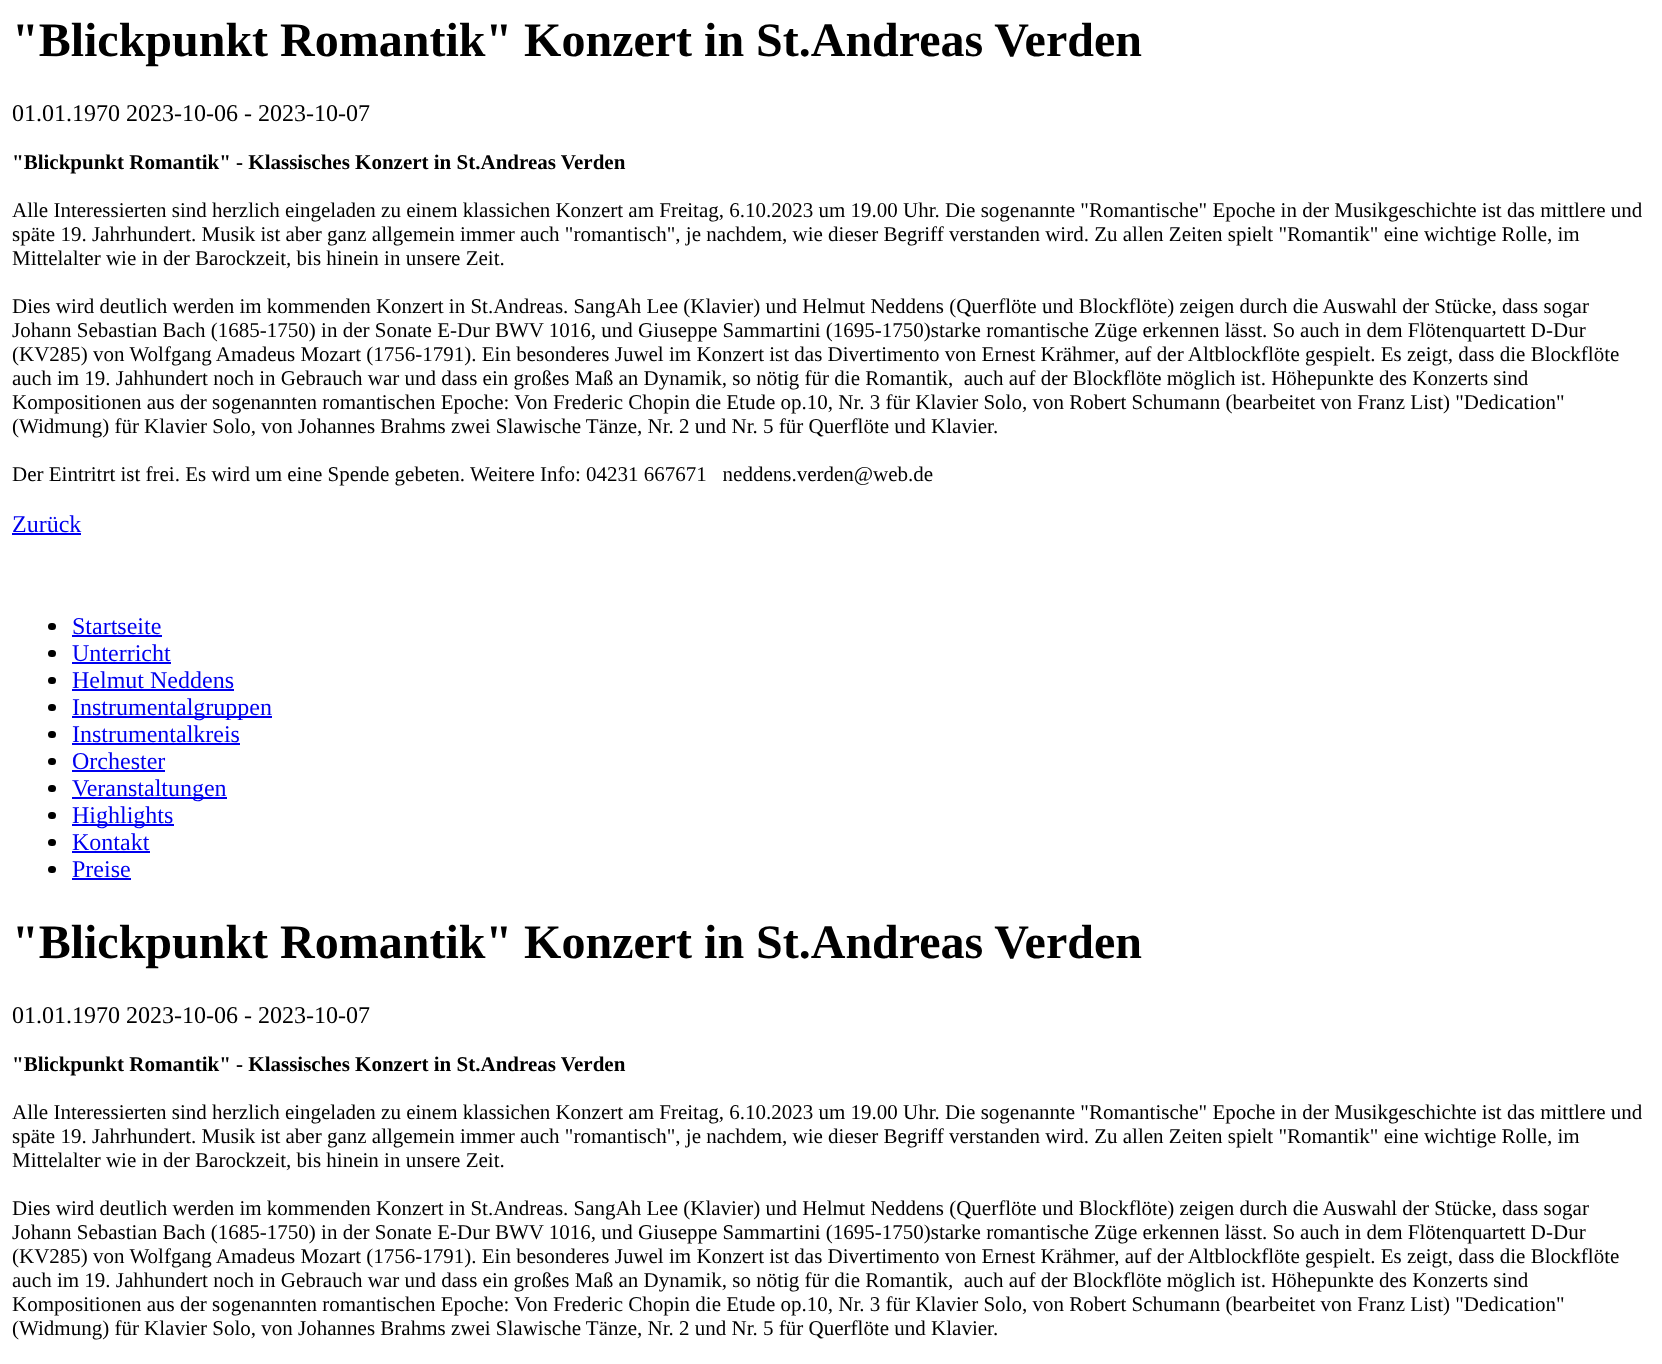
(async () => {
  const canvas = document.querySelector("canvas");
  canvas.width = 1662;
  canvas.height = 1364;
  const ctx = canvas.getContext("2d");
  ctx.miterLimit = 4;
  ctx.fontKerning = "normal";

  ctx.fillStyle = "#ffffff";
  ctx.fillRect(0, 0, 1662, 1364);
  ctx.fillStyle = "#0000ee";
  ctx.fillRect(12, 533, 69, 2);
  ctx.fillStyle = "#000000";
  ctx.beginPath();
  ctx.roundRect(48, 623, 8, 7, 3.5);
  ctx.fill();
  ctx.fillStyle = "#0000ee";
  ctx.fillRect(72, 635, 90, 2);
  ctx.fillStyle = "#000000";
  ctx.beginPath();
  ctx.roundRect(48, 650, 8, 7, 3.5);
  ctx.fill();
  ctx.fillStyle = "#0000ee";
  ctx.fillRect(72, 662, 99, 2);
  ctx.fillStyle = "#000000";
  ctx.beginPath();
  ctx.roundRect(48, 677, 8, 7, 3.5);
  ctx.fill();
  ctx.fillStyle = "#0000ee";
  ctx.fillRect(72, 689, 162, 2);
  ctx.fillStyle = "#000000";
  ctx.beginPath();
  ctx.roundRect(48, 704, 8, 7, 3.5);
  ctx.fill();
  ctx.fillStyle = "#0000ee";
  ctx.fillRect(72, 716, 200, 2);
  ctx.fillStyle = "#000000";
  ctx.beginPath();
  ctx.roundRect(48, 731, 8, 7, 3.5);
  ctx.fill();
  ctx.fillStyle = "#0000ee";
  ctx.fillRect(72, 743, 168, 2);
  ctx.fillStyle = "#000000";
  ctx.beginPath();
  ctx.roundRect(48, 758, 8, 7, 3.5);
  ctx.fill();
  ctx.fillStyle = "#0000ee";
  ctx.fillRect(72, 770, 93, 2);
  ctx.fillStyle = "#000000";
  ctx.beginPath();
  ctx.roundRect(48, 785, 8, 7, 3.5);
  ctx.fill();
  ctx.fillStyle = "#0000ee";
  ctx.fillRect(72, 797, 155, 2);
  ctx.fillStyle = "#000000";
  ctx.beginPath();
  ctx.roundRect(48, 812, 8, 7, 3.5);
  ctx.fill();
  ctx.fillStyle = "#0000ee";
  ctx.fillRect(72, 824, 102, 2);
  ctx.fillStyle = "#000000";
  ctx.beginPath();
  ctx.roundRect(48, 839, 8, 7, 3.5);
  ctx.fill();
  ctx.fillStyle = "#0000ee";
  ctx.fillRect(72, 851, 78, 2);
  ctx.fillStyle = "#000000";
  ctx.beginPath();
  ctx.roundRect(48, 866, 8, 7, 3.5);
  ctx.fill();
  ctx.fillStyle = "#0000ee";
  ctx.fillRect(72, 878, 59, 2);
  ctx.font = "bold 48px Liberation Serif";
  ctx.fillStyle = "#000000";
  ctx.fillText("\"Blickpunkt Romantik\" Konzert in St.Andreas Verden", 12, 56);
  ctx.font = "24px Liberation Serif";
  ctx.fillText("01.01.1970 2023-10-06 - 2023-10-07", 12, 121);
  ctx.font = "bold 21px Liberation Serif";
  ctx.fillText("\"Blickpunkt Romantik\" - Klassisches Konzert in St.Andreas Verden", 12, 169);
  ctx.font = "21px Liberation Serif";
  for (const [text, x, y] of [
    ["Alle Interessierten sind herzlich eingeladen zu einem klassichen Konzert am Freitag, 6.10.2023 um 19.00 Uhr. Die sogenannte \"Romantische\" Epoche in der Musikgeschichte ist das mittlere und", 12, 217],
    ["späte 19. Jahrhundert. Musik ist aber ganz allgemein immer auch \"romantisch\", je nachdem, wie dieser Begriff verstanden wird. Zu allen Zeiten spielt \"Romantik\" eine wichtige Rolle, im", 12, 241],
    ["Mittelalter wie in der Barockzeit, bis hinein in unsere Zeit.", 12, 265],
    ["Dies wird deutlich werden im kommenden Konzert in St.Andreas. SangAh Lee (Klavier) und Helmut Neddens (Querflöte und Blockflöte) zeigen durch die Auswahl der Stücke, dass sogar", 12, 313],
    ["Johann Sebastian Bach (1685-1750) in der Sonate E-Dur BWV 1016, und Giuseppe Sammartini (1695-1750)starke romantische Züge erkennen lässt. So auch in dem Flötenquartett D-Dur", 12, 337],
    ["(KV285) von Wolfgang Amadeus Mozart (1756-1791). Ein besonderes Juwel im Konzert ist das Divertimento von Ernest Krähmer, auf der Altblockflöte gespielt. Es zeigt, dass die Blockflöte", 12, 361],
    ["auch im 19. Jahhundert noch in Gebrauch war und dass ein großes Maß an Dynamik, so nötig für die Romantik,  auch auf der Blockflöte möglich ist. Höhepunkte des Konzerts sind", 12, 385],
    ["Kompositionen aus der sogenannten romantischen Epoche: Von Frederic Chopin die Etude op.10, Nr. 3 für Klavier Solo, von Robert Schumann (bearbeitet von Franz List) \"Dedication\"", 12, 409],
    ["(Widmung) für Klavier Solo, von Johannes Brahms zwei Slawische Tänze, Nr. 2 und Nr. 5 für Querflöte und Klavier.", 12, 433],
    ["Der Eintritrt ist frei. Es wird um eine Spende gebeten. Weitere Info: 04231 667671   neddens.verden@web.de", 12, 481],
  ]) {
    ctx.fillText(text, x, y);
  }
  ctx.font = "24px Liberation Serif";
  ctx.fillStyle = "#0000ee";
  for (const [text, x, y] of [
    ["Zurück", 12, 532],
    ["Startseite", 72, 634],
    ["Unterricht", 72, 661],
    ["Helmut Neddens", 72, 688],
    ["Instrumentalgruppen", 72, 715],
    ["Instrumentalkreis", 72, 742],
    ["Orchester", 72, 769],
    ["Veranstaltungen", 72, 796],
    ["Highlights", 72, 823],
    ["Kontakt", 72, 850],
    ["Preise", 72, 877],
  ]) {
    ctx.fillText(text, x, y);
  }
  ctx.font = "bold 48px Liberation Serif";
  ctx.fillStyle = "#000000";
  ctx.fillText("\"Blickpunkt Romantik\" Konzert in St.Andreas Verden", 12, 958);
  ctx.font = "24px Liberation Serif";
  ctx.fillText("01.01.1970 2023-10-06 - 2023-10-07", 12, 1023);
  ctx.font = "bold 21px Liberation Serif";
  ctx.fillText("\"Blickpunkt Romantik\" - Klassisches Konzert in St.Andreas Verden", 12, 1071);
  ctx.font = "21px Liberation Serif";
  for (const [text, x, y] of [
    ["Alle Interessierten sind herzlich eingeladen zu einem klassichen Konzert am Freitag, 6.10.2023 um 19.00 Uhr. Die sogenannte \"Romantische\" Epoche in der Musikgeschichte ist das mittlere und", 12, 1119],
    ["späte 19. Jahrhundert. Musik ist aber ganz allgemein immer auch \"romantisch\", je nachdem, wie dieser Begriff verstanden wird. Zu allen Zeiten spielt \"Romantik\" eine wichtige Rolle, im", 12, 1143],
    ["Mittelalter wie in der Barockzeit, bis hinein in unsere Zeit.", 12, 1167],
    ["Dies wird deutlich werden im kommenden Konzert in St.Andreas. SangAh Lee (Klavier) und Helmut Neddens (Querflöte und Blockflöte) zeigen durch die Auswahl der Stücke, dass sogar", 12, 1215],
    ["Johann Sebastian Bach (1685-1750) in der Sonate E-Dur BWV 1016, und Giuseppe Sammartini (1695-1750)starke romantische Züge erkennen lässt. So auch in dem Flötenquartett D-Dur", 12, 1239],
    ["(KV285) von Wolfgang Amadeus Mozart (1756-1791). Ein besonderes Juwel im Konzert ist das Divertimento von Ernest Krähmer, auf der Altblockflöte gespielt. Es zeigt, dass die Blockflöte", 12, 1263],
    ["auch im 19. Jahhundert noch in Gebrauch war und dass ein großes Maß an Dynamik, so nötig für die Romantik,  auch auf der Blockflöte möglich ist. Höhepunkte des Konzerts sind", 12, 1287],
    ["Kompositionen aus der sogenannten romantischen Epoche: Von Frederic Chopin die Etude op.10, Nr. 3 für Klavier Solo, von Robert Schumann (bearbeitet von Franz List) \"Dedication\"", 12, 1311],
    ["(Widmung) für Klavier Solo, von Johannes Brahms zwei Slawische Tänze, Nr. 2 und Nr. 5 für Querflöte und Klavier.", 12, 1335],
  ]) {
    ctx.fillText(text, x, y);
  }
})();
